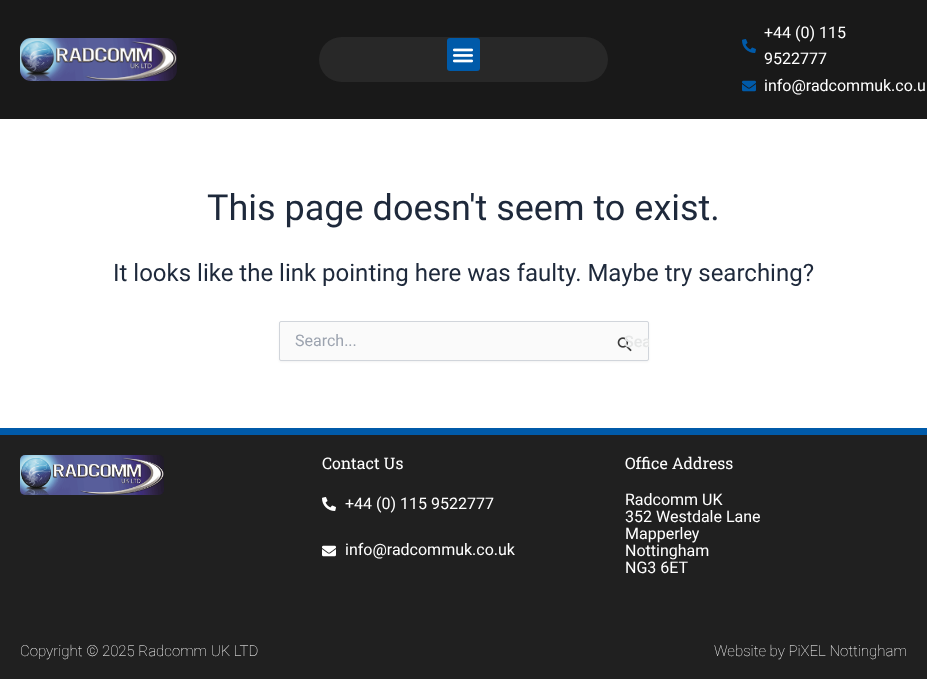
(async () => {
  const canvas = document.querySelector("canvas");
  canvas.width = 927;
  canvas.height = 679;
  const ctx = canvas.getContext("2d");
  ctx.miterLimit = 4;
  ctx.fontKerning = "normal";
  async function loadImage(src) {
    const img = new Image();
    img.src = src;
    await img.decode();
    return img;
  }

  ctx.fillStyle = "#ffffff";
  ctx.fillRect(0, 0, 927, 679);
  ctx.fillStyle = "#191919";
  ctx.fillRect(0, 0, 927, 119);
  ctx.drawImage(await loadImage("img/1.png"), 20, 38, 157, 43);
  ctx.fillStyle = "#282828";
  ctx.beginPath();
  ctx.roundRect(319, 37, 289, 45, 22.5);
  ctx.fill();
  ctx.fillStyle = "#005aa9";
  ctx.beginPath();
  ctx.roundRect(447, 38, 33, 33, 3);
  ctx.fill();
  ctx.drawImage(await loadImage("img/2.png"), 452, 48, 22, 15);
  ctx.drawImage(await loadImage("img/3.png"), 742, 39, 14, 14);
  ctx.drawImage(await loadImage("img/4.png"), 742, 80, 14, 12);
  ctx.fillStyle = "rgba(0, 0, 0, 0.05)";
  ctx.filter = "blur(1px)";
  ctx.beginPath();
  ctx.roundRect(279, 322, 370, 40, 2);
  ctx.fill();
  ctx.filter = "none";
  ctx.fillStyle = "#fafafa";
  ctx.beginPath();
  ctx.roundRect(279.5, 321.5, 369, 39, 1.5);
  ctx.fill();
  ctx.strokeStyle = "#d1d5db";
  ctx.stroke();
  ctx.drawImage(await loadImage("img/5.png"), 617, 337, 15, 15);
  ctx.fillStyle = "#202020";
  ctx.fillRect(0, 435, 927, 244);
  ctx.fillStyle = "#005aa9";
  ctx.fillRect(0, 428, 927, 7);
  ctx.drawImage(await loadImage("img/6.png"), 20, 455, 144, 40);
  ctx.drawImage(await loadImage("img/7.png"), 322, 497, 14, 14);
  ctx.drawImage(await loadImage("img/8.png"), 322, 545, 14, 12);
  ctx.font = "16px Roboto";
  ctx.fillStyle = "#ffffff";
  for (const [text, x, y] of [
    ["+44 (0) 115", 764, 38],
    ["9522777", 764, 64],
    ["info@radcommuk.co.u", 764, 91],
  ]) {
    ctx.fillText(text, x, y);
  }
  ctx.font = "36px Roboto";
  ctx.fillStyle = "#1e293b";
  ctx.fillText("This page doesn't seem to exist.", 207, 220);
  ctx.font = "24px Roboto";
  ctx.fillText("It looks like the link pointing here was faulty. Maybe try searching?", 113, 281);
  ctx.font = "16px Roboto";
  ctx.fillStyle = "#9ca3af";
  ctx.fillText("Search...", 295, 346);
  ctx.save();
  ctx.beginPath();
  ctx.roundRect(604, 321, 45, 42, 2);
  ctx.clip();
  ctx.font = "500 16px Roboto";
  ctx.fillStyle = "#e6e7e7";
  ctx.fillText("Sea", 624, 347);
  ctx.restore();
  ctx.font = "16px Roboto Slab";
  ctx.fillStyle = "#ffffff";
  ctx.fillText("Contact Us", 322, 469);
  ctx.font = "16px Roboto";
  ctx.fillText("+44 (0) 115 9522777", 345, 509);
  ctx.fillText("info@radcommuk.co.uk", 345, 555);
  ctx.font = "16px Roboto Slab";
  ctx.fillText("Office Address", 625, 469);
  ctx.font = "16px Roboto";
  for (const [text, x, y] of [
    ["Radcomm UK", 625, 505],
    ["352 Westdale Lane", 625, 522],
    ["Mapperley", 625, 539],
    ["Nottingham", 625, 556],
    ["NG3 6ET", 625, 573],
  ]) {
    ctx.fillText(text, x, y);
  }
  ctx.font = "100 15px Roboto";
  ctx.fillText("Copyright © 2025 Radcomm UK LTD", 20, 656);
  ctx.fillText("Website by PiXEL Nottingham", 714, 656);
})();
